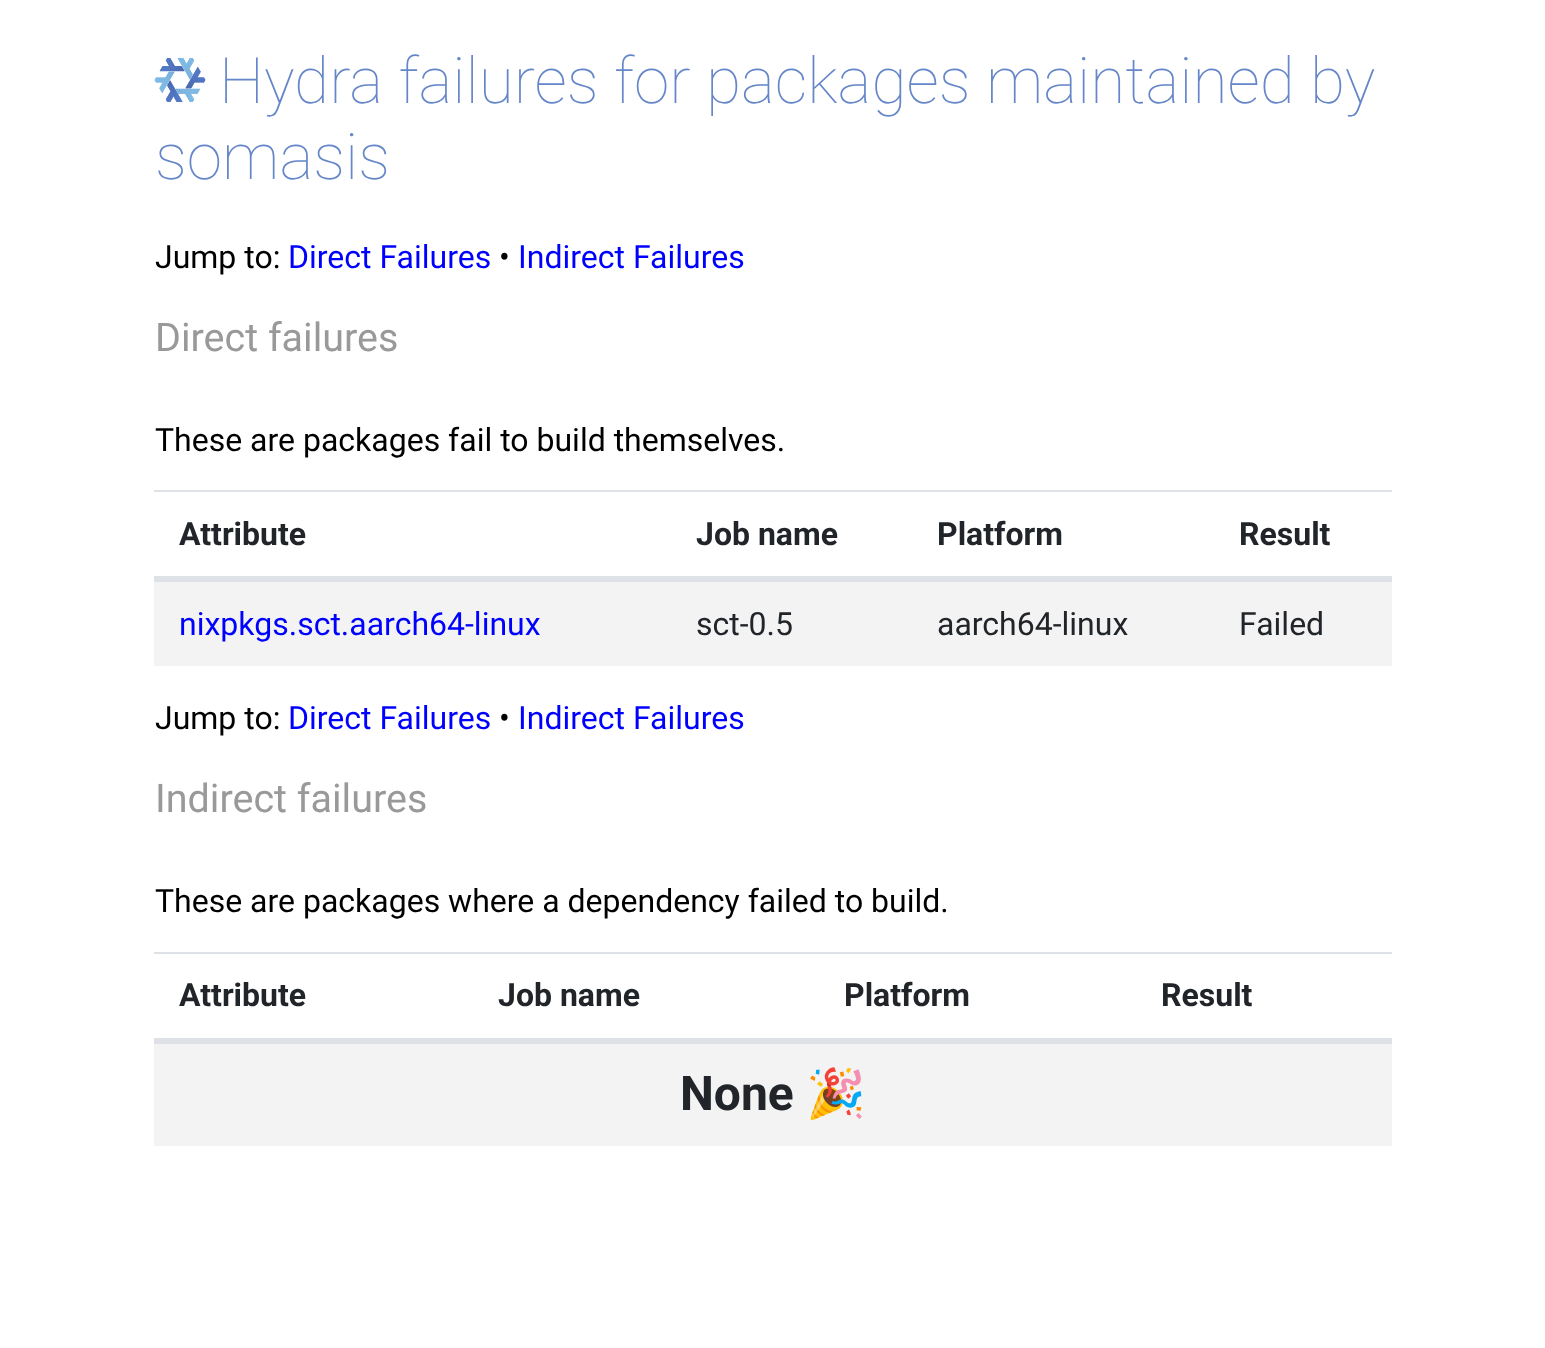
(async () => {
  const canvas = document.querySelector("canvas");
  canvas.width = 1545;
  canvas.height = 1348;
  const ctx = canvas.getContext("2d");
  ctx.miterLimit = 4;
  ctx.fontKerning = "normal";
  async function loadImage(src) {
    const img = new Image();
    img.src = src;
    await img.decode();
    return img;
  }

  ctx.fillStyle = "#ffffff";
  ctx.fillRect(0, 0, 1545, 1348);
  ctx.drawImage(await loadImage("img/1.png"), 154, 58, 52, 44);
  for (const [x, y, w, h, color] of [
    [154, 490, 1238, 2, "#dee2e6"],
    [154, 576, 1238, 6, "#dee2e6"],
    [154, 582, 1238, 84, "#f3f3f3"],
    [154, 952, 1238, 2, "#dee2e6"],
    [154, 1038, 1238, 6, "#dee2e6"],
    [154, 1044, 1238, 102, "#f3f3f3"],
  ]) {
    ctx.fillStyle = color;
    ctx.fillRect(x, y, w, h);
  }
  ctx.font = "100 64px Roboto";
  ctx.fillStyle = "#6586c8";
  ctx.fillText("Hydra failures for packages maintained by", 219, 103);
  ctx.fillText("somasis", 155, 179);
  ctx.font = "32px Roboto";
  ctx.fillStyle = "#000000";
  ctx.fillText("Jump to:", 155, 268);
  ctx.fillStyle = "#0000ff";
  ctx.fillText("Direct Failures", 288, 268);
  ctx.fillStyle = "#000000";
  ctx.fillText("•", 499, 268);
  ctx.fillStyle = "#0000ff";
  ctx.fillText("Indirect Failures", 518, 268);
  ctx.font = "39.5px Roboto";
  ctx.fillStyle = "#999999";
  ctx.fillText("Direct failures", 155, 351);
  ctx.font = "32px Roboto";
  ctx.fillStyle = "#000000";
  ctx.fillText("These are packages fail to build themselves.", 155, 451);
  ctx.font = "bold 32px Roboto";
  ctx.fillStyle = "#212529";
  for (const [text, x, y] of [
    ["Attribute", 179, 545],
    ["Job name", 696, 545],
    ["Platform", 937, 545],
    ["Result", 1239, 545],
  ]) {
    ctx.fillText(text, x, y);
  }
  ctx.font = "32px Roboto";
  ctx.fillStyle = "#0000ff";
  ctx.fillText("nixpkgs.sct.aarch64-linux", 179, 635);
  ctx.fillStyle = "#212529";
  for (const [text, x, y] of [
    ["sct-0.5", 696, 635],
    ["aarch64-linux", 937, 635],
    ["Failed", 1239, 635],
  ]) {
    ctx.fillText(text, x, y);
  }
  ctx.fillStyle = "#000000";
  ctx.fillText("Jump to:", 155, 729);
  ctx.fillStyle = "#0000ff";
  ctx.fillText("Direct Failures", 288, 729);
  ctx.fillStyle = "#000000";
  ctx.fillText("•", 499, 729);
  ctx.fillStyle = "#0000ff";
  ctx.fillText("Indirect Failures", 518, 729);
  ctx.font = "39.5px Roboto";
  ctx.fillStyle = "#999999";
  ctx.fillText("Indirect failures", 155, 812);
  ctx.font = "32px Roboto";
  ctx.fillStyle = "#000000";
  ctx.fillText("These are packages where a dependency failed to build.", 155, 912);
  ctx.font = "bold 32px Roboto";
  ctx.fillStyle = "#212529";
  for (const [text, x, y] of [
    ["Attribute", 179, 1006],
    ["Job name", 498, 1006],
    ["Platform", 844, 1006],
    ["Result", 1161, 1006],
  ]) {
    ctx.fillText(text, x, y);
  }
  ctx.font = "bold 48px Roboto";
  ctx.fillText("None", 680, 1110);
  ctx.font = "bold 48px Noto Color Emoji";
  ctx.fillText("🎉", 806, 1110);
})();
